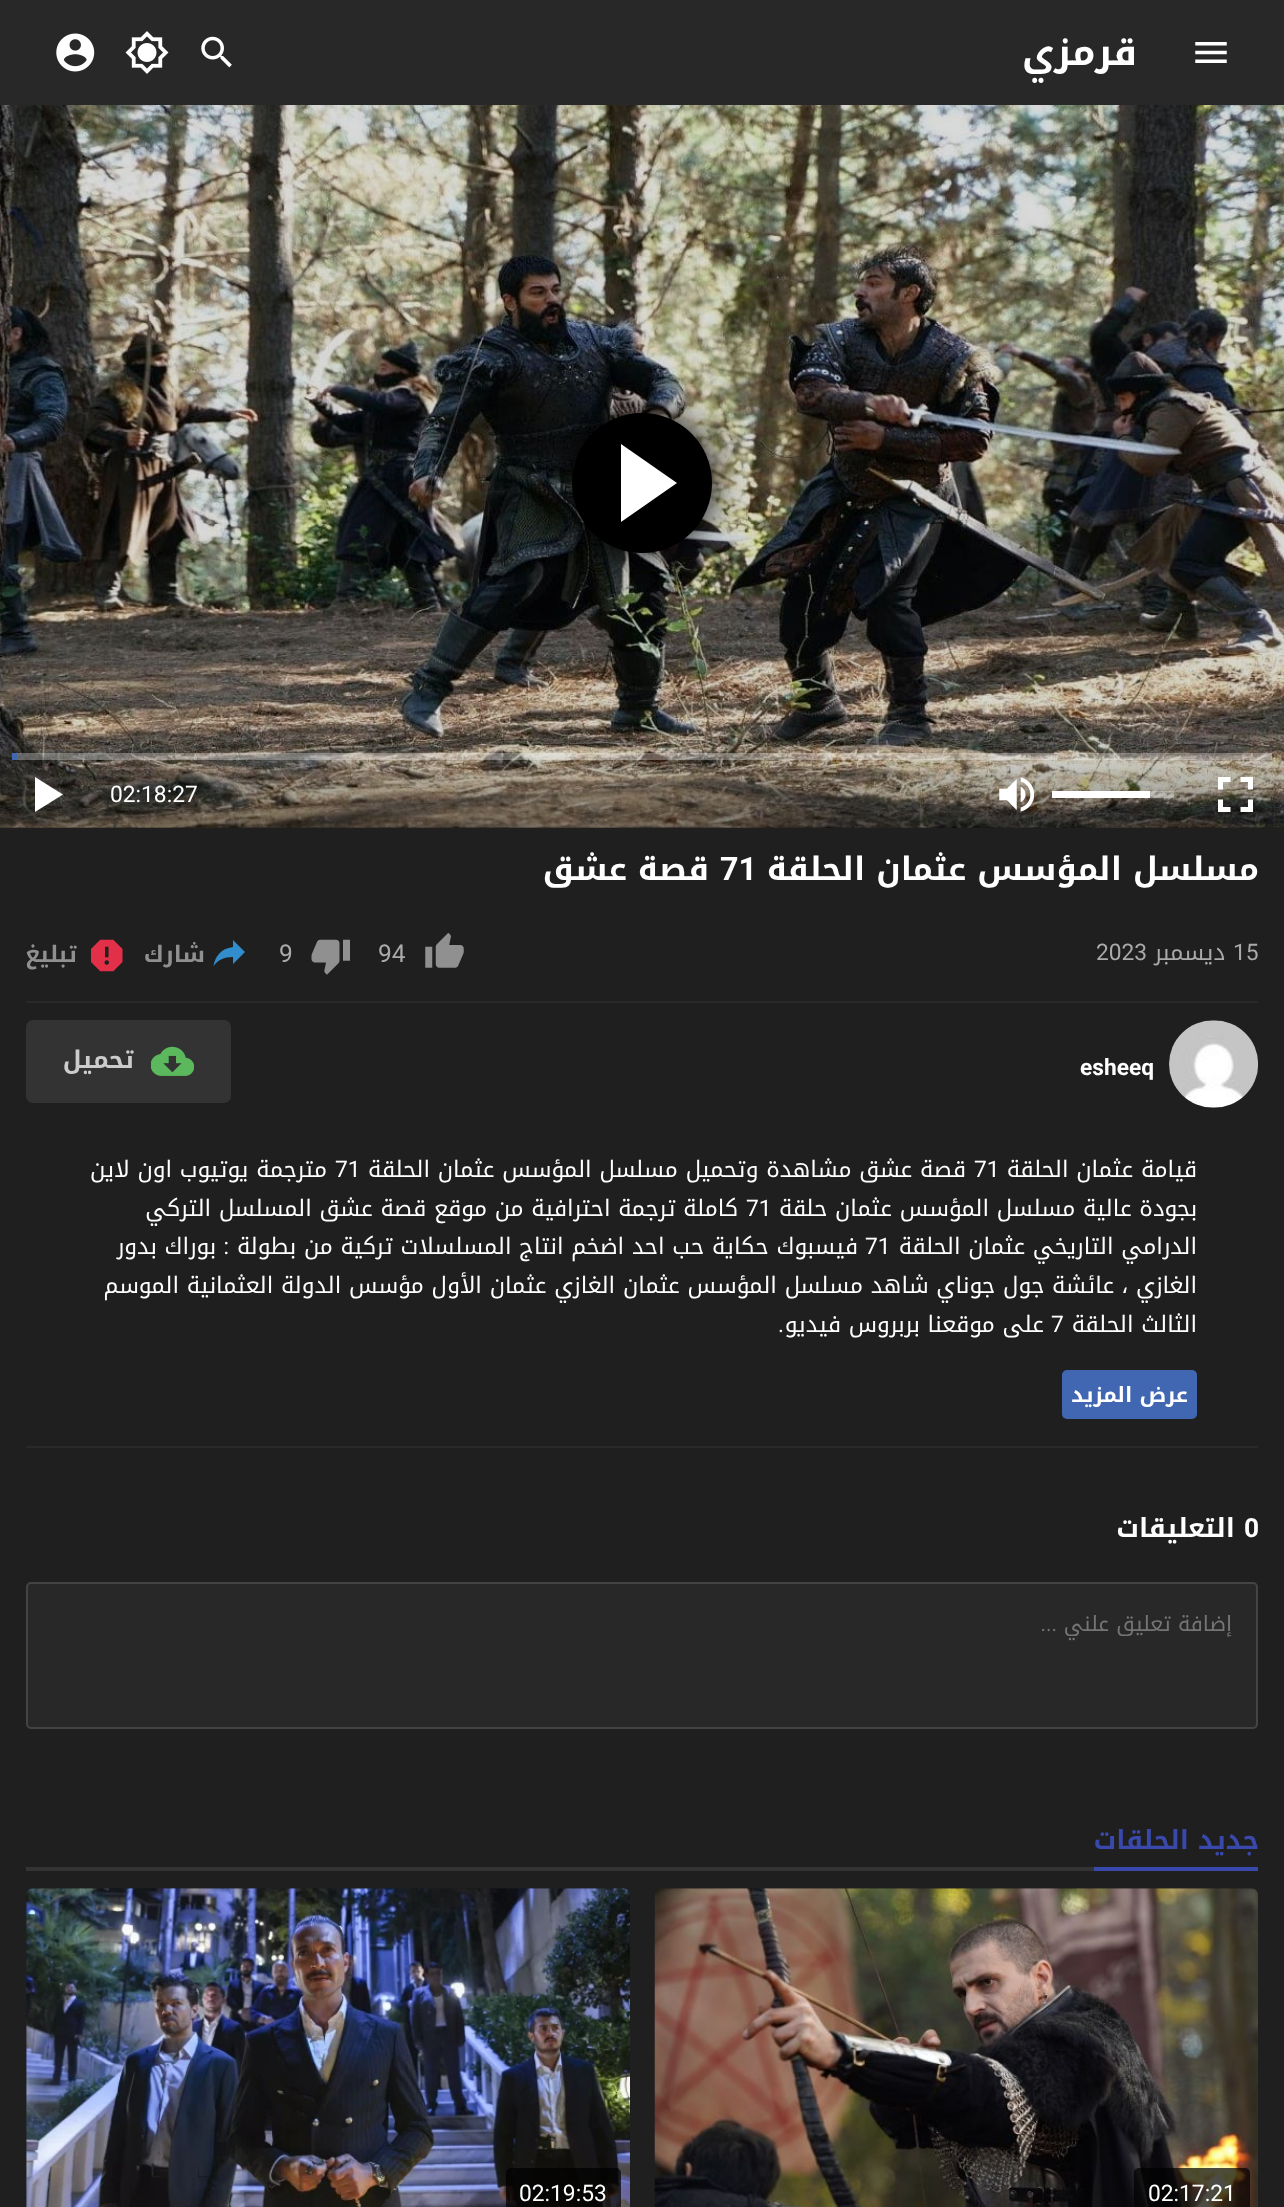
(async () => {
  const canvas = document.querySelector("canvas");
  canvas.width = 1284;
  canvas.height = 2207;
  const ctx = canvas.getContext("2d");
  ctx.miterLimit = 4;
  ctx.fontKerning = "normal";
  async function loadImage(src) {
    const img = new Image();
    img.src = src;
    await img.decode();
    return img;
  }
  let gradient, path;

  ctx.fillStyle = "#1f1f1f";
  ctx.fillRect(0, 0, 1284, 2207);
  ctx.fillStyle = "#282828";
  ctx.fillRect(0, 0, 1284, 105);
  ctx.drawImage(await loadImage("img/1.png"), 1195, 42, 32, 21);
  ctx.drawImage(await loadImage("img/2.png"), 201, 36, 31, 32);
  ctx.drawImage(await loadImage("img/3.png"), 125, 31, 44, 43);
  ctx.drawImage(await loadImage("img/4.png"), 56, 33, 39, 39);
  ctx.drawImage(await loadImage("img/5.png"), 0, 105, 1284, 723);
  ctx.fillStyle = "#000000";
  ctx.filter = "blur(17.5px)";
  ctx.beginPath();
  ctx.roundRect(572, 413, 140, 140, 70);
  ctx.fill();
  ctx.filter = "none";
  ctx.beginPath();
  ctx.arc(642, 483, 70, 0, Math.PI * 2);
  ctx.fill();
  ctx.fillStyle = "#ffffff";
  path = new Path2D("M621 522V444L677 483Z");
  ctx.fill(path);
  gradient = ctx.createLinearGradient(642, 752, 642, 830);
  gradient.addColorStop(0, "rgba(0, 0, 0, 0)");
  gradient.addColorStop(1, "rgba(0, 0, 0, 0.4)");
  ctx.fillStyle = gradient;
  ctx.fillRect(0, 756, 1284, 72);
  ctx.fillStyle = "rgba(255, 255, 255, 0.3)";
  ctx.fillRect(12, 753, 1260, 7);
  ctx.fillStyle = "#4267b2";
  ctx.fillRect(12, 753, 5, 7);
  ctx.drawImage(await loadImage("img/6.png"), 1218, 777, 35, 35);
  ctx.fillStyle = "rgba(255, 255, 255, 0.3)";
  ctx.fillRect(1150, 791, 24, 7);
  ctx.fillStyle = "#ffffff";
  ctx.fillRect(1052, 791, 98, 7);
  ctx.drawImage(await loadImage("img/7.png"), 999, 777, 35, 35);
  path = new Path2D("M35 777V812L63 794.5Z");
  ctx.fill(path);
  ctx.fillStyle = "#292929";
  ctx.fillRect(26, 1001, 1232, 2);
  ctx.drawImage(await loadImage("img/8.png"), 425, 932, 39, 36);
  ctx.drawImage(await loadImage("img/9.png"), 311, 939, 39, 36);
  ctx.fillStyle = "#318dcb";
  path = new Path2D("M245 952L233 940V947C220.5 948.5 215 957 213.5 966C218 960 224 957 233 957V964Z");
  ctx.fill(path);
  ctx.drawImage(await loadImage("img/10.png"), 91, 939, 32, 33);
  ctx.drawImage(await loadImage("img/11.png"), 1169, 1020, 90, 88);
  ctx.fillStyle = "#333333";
  ctx.beginPath();
  ctx.roundRect(27, 1021, 203, 81, 6);
  ctx.fill();
  ctx.strokeStyle = "#333333";
  ctx.lineWidth = 2;
  ctx.stroke();
  ctx.drawImage(await loadImage("img/12.png"), 151, 1046, 43, 30);
  ctx.fillStyle = "#292929";
  ctx.fillRect(26, 1446, 1232, 2);
  ctx.fillStyle = "#4267b2";
  ctx.beginPath();
  ctx.roundRect(1062, 1370, 135, 49, 5);
  ctx.fill();
  ctx.fillStyle = "#282828";
  ctx.beginPath();
  ctx.roundRect(27, 1583, 1230, 145, 4);
  ctx.fill();
  ctx.strokeStyle = "#444444";
  ctx.stroke();
  ctx.fillStyle = "#333333";
  ctx.fillRect(26, 1867, 1068, 4);
  ctx.fillStyle = "#3949ab";
  ctx.fillRect(1094, 1867, 164, 4);
  ctx.drawImage(await loadImage("img/13.png"), 654, 1888, 604, 319);
  ctx.fillStyle = "rgba(0, 0, 0, 0.7)";
  ctx.beginPath();
  ctx.roundRect(1134, 2168, 116, 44, 5);
  ctx.fill();
  ctx.drawImage(await loadImage("img/14.png"), 26, 1888, 604, 319);
  ctx.beginPath();
  ctx.roundRect(506, 2168, 115, 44, 5);
  ctx.fill();
  ctx.direction = "rtl";
  ctx.font = "bold 37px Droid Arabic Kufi";
  ctx.fillStyle = "#ffffff";
  ctx.fillText("قرمزي", 1137, 65);
  ctx.direction = "ltr";
  ctx.font = "22.75px Roboto";
  ctx.fillText("02:18:27", 110, 802);
  ctx.direction = "rtl";
  ctx.font = "bold 32.25px Droid Arabic Kufi";
  ctx.fillText("مسلسل المؤسس عثمان الحلقة", 1259, 880);
  ctx.direction = "ltr";
  ctx.font = "bold 32.25px Roboto";
  ctx.fillText("71", 720, 880);
  ctx.direction = "rtl";
  ctx.font = "bold 32.25px Droid Arabic Kufi";
  ctx.fillText("قصة عشق", 709, 880);
  ctx.direction = "ltr";
  ctx.font = "22.75px Roboto";
  ctx.fillStyle = "#aaaaaa";
  ctx.fillText("15", 1233, 960);
  ctx.direction = "rtl";
  ctx.font = "22.75px Droid Arabic Kufi";
  ctx.fillText("ديسمبر", 1225, 960);
  ctx.direction = "ltr";
  ctx.font = "22.75px Roboto";
  ctx.fillText("2023", 1096, 960);
  ctx.font = "24.5px Roboto";
  ctx.fillText("94", 378, 962);
  ctx.fillText("9", 279, 962);
  ctx.direction = "rtl";
  ctx.font = "bold 22.75px Droid Arabic Kufi";
  ctx.fillStyle = "#909090";
  ctx.fillText("شارك", 205, 962);
  ctx.fillText("تبليغ", 77, 962);
  ctx.direction = "ltr";
  ctx.font = "bold 22.75px Roboto";
  ctx.fillStyle = "#ffffff";
  ctx.fillText("esheeq", 1080, 1075);
  ctx.direction = "rtl";
  ctx.font = "bold 24.5px Droid Arabic Kufi";
  ctx.fillStyle = "#cccccc";
  ctx.fillText("تحميل", 134, 1068);
  ctx.font = "22.75px Droid Arabic Kufi";
  ctx.fillStyle = "#ffffff";
  ctx.fillText("قيامة عثمان الحلقة", 1197, 1177);
  ctx.direction = "ltr";
  ctx.font = "22.75px Roboto";
  ctx.fillText("71", 974, 1177);
  ctx.direction = "rtl";
  ctx.font = "22.75px Droid Arabic Kufi";
  ctx.fillText("قصة عشق مشاهدة وتحميل مسلسل المؤسس عثمان الحلقة", 966, 1177);
  ctx.direction = "ltr";
  ctx.font = "22.75px Roboto";
  ctx.fillText("71", 335, 1177);
  ctx.direction = "rtl";
  ctx.font = "22.75px Droid Arabic Kufi";
  ctx.fillText("مترجمة يوتيوب اون لاين", 327, 1177);
  ctx.fillText("بجودة عالية مسلسل المؤسس عثمان حلقة", 1197, 1216);
  ctx.direction = "ltr";
  ctx.font = "22.75px Roboto";
  ctx.fillText("71", 746, 1216);
  ctx.direction = "rtl";
  ctx.font = "22.75px Droid Arabic Kufi";
  ctx.fillText("كاملة ترجمة احترافية من موقع قصة عشق المسلسل التركي", 738, 1216);
  ctx.fillText("الدرامي التاريخي عثمان الحلقة", 1197, 1254);
  ctx.direction = "ltr";
  ctx.font = "22.75px Roboto";
  ctx.fillText("71", 865, 1254);
  ctx.direction = "rtl";
  ctx.font = "22.75px Droid Arabic Kufi";
  ctx.fillText("فيسبوك حكاية حب احد اضخم انتاج المسلسلات تركية من بطولة", 858, 1254);
  ctx.font = "22.75px Roboto";
  ctx.fillText(":", 229, 1254);
  ctx.font = "22.75px Droid Arabic Kufi";
  for (const [text, x, y] of [
    ["بوراك بدور", 216, 1254],
    ["الغازي ، عائشة جول جوناي شاهد مسلسل المؤسس عثمان الغازي عثمان الأول مؤسس الدولة العثمانية الموسم", 1197, 1293],
    ["الثالث الحلقة", 1197, 1332],
  ]) {
    ctx.fillText(text, x, y);
  }
  ctx.direction = "ltr";
  ctx.font = "22.75px Roboto";
  ctx.fillText("7", 1051, 1332);
  ctx.direction = "rtl";
  ctx.font = "22.75px Droid Arabic Kufi";
  ctx.fillText("على موقعنا بربروس فيديو", 1044, 1332);
  ctx.font = "22.75px Roboto";
  ctx.fillText(".", 784, 1332);
  ctx.font = "bold 21px Droid Arabic Kufi";
  ctx.fillText("عرض المزيد", 1188, 1402);
  ctx.direction = "ltr";
  ctx.font = "bold 26.25px Roboto";
  ctx.fillText("0", 1244, 1537);
  ctx.direction = "rtl";
  ctx.font = "bold 26.25px Droid Arabic Kufi";
  ctx.fillText("التعليقات", 1235, 1537);
  ctx.font = "21px Droid Arabic Kufi";
  ctx.fillStyle = "#757575";
  ctx.fillText("إضافة تعليق علني", 1232, 1631);
  ctx.font = "21px Roboto";
  ctx.fillText("...", 1057, 1631);
  ctx.font = "bold 26.25px Droid Arabic Kufi";
  ctx.fillStyle = "#3949ab";
  ctx.fillText("جديد الحلقات", 1259, 1849);
  ctx.direction = "ltr";
  ctx.font = "22.75px Roboto";
  ctx.fillStyle = "#ffffff";
  ctx.fillText("02:17:21", 1148, 2201);
  ctx.fillText("02:19:53", 519, 2201);
})();
